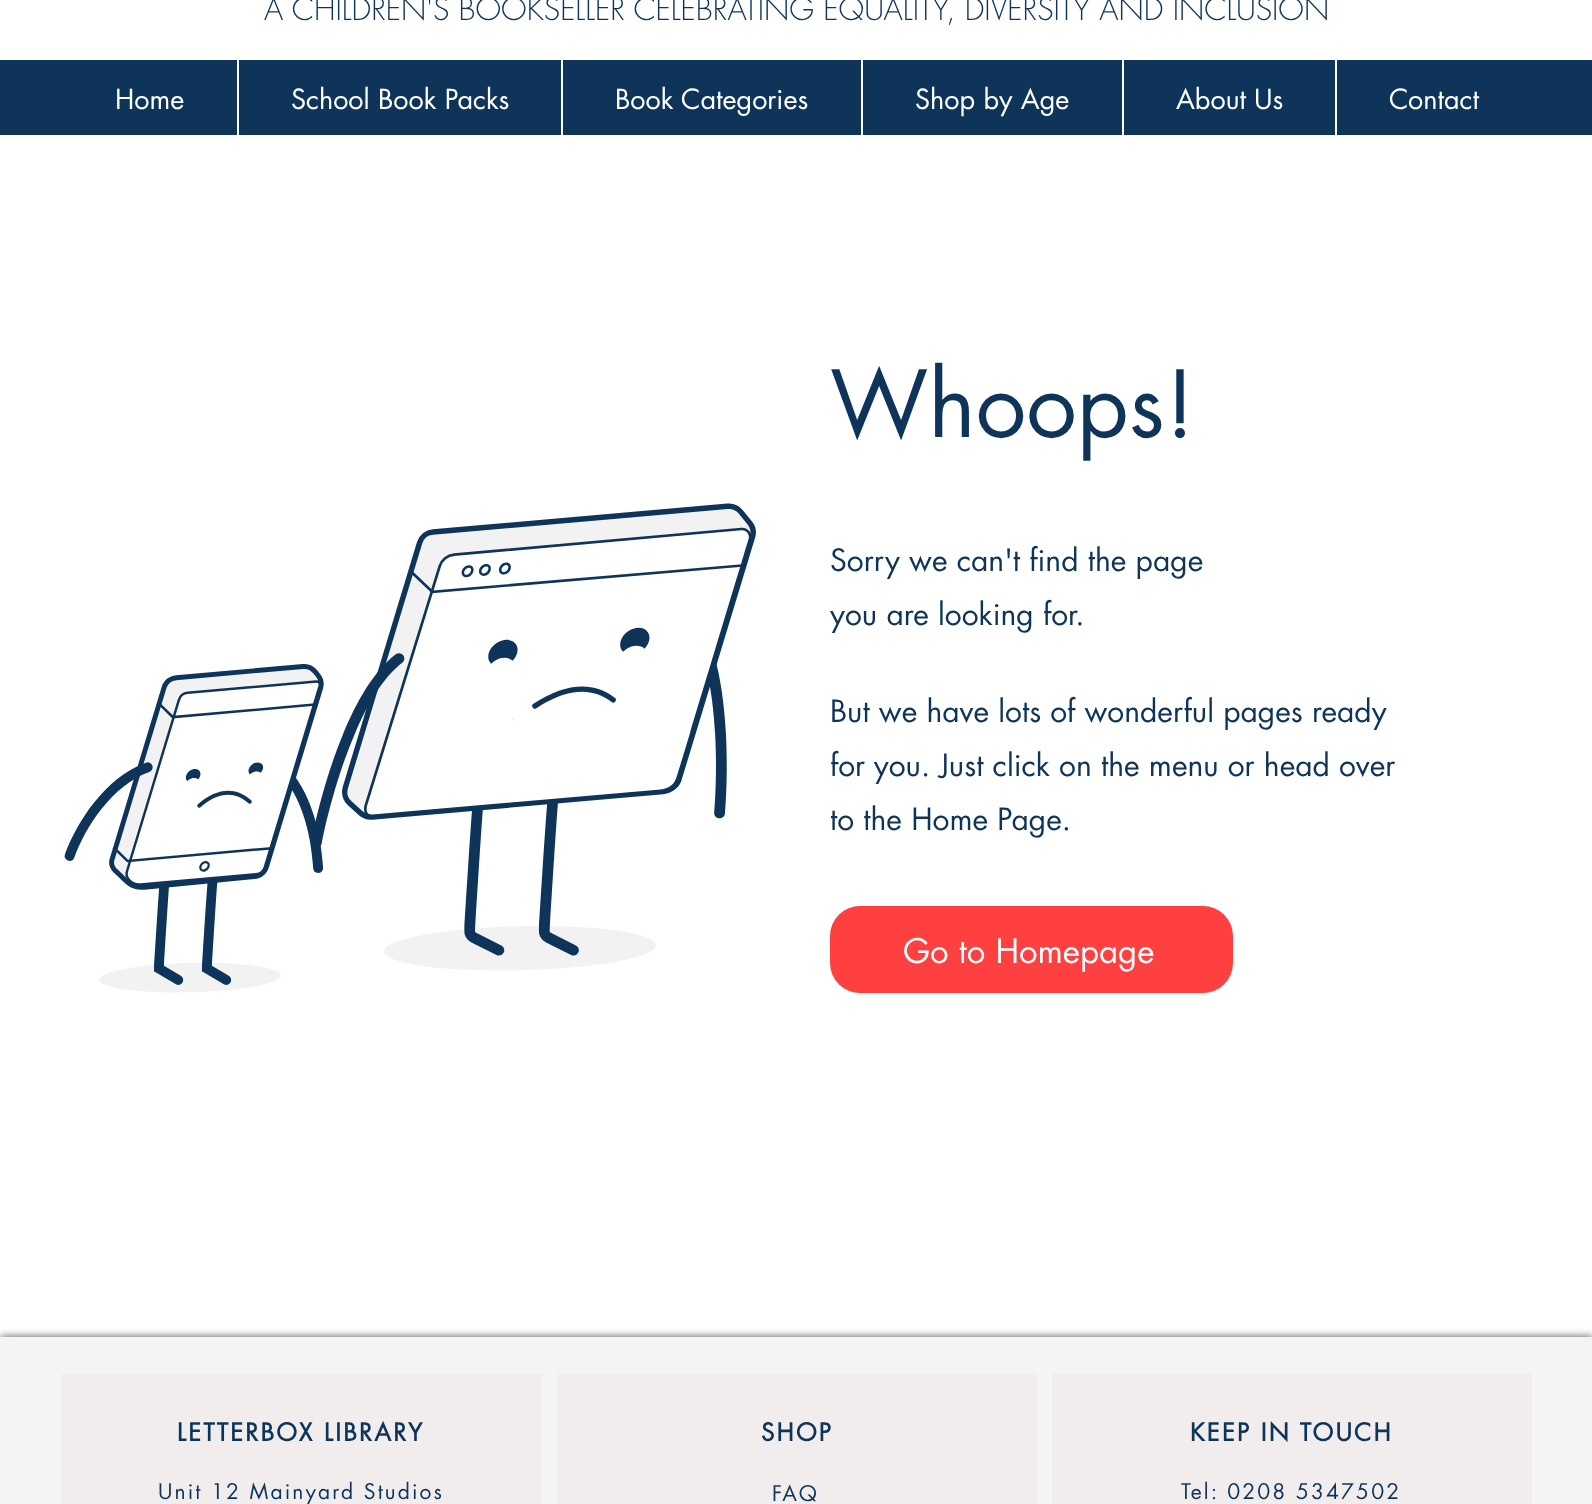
(async () => {
  const canvas = document.querySelector("canvas");
  canvas.width = 1592;
  canvas.height = 1504;
  const ctx = canvas.getContext("2d");
  ctx.miterLimit = 4;
  ctx.fontKerning = "normal";
  async function loadImage(src) {
    const img = new Image();
    img.src = src;
    await img.decode();
    return img;
  }

  ctx.fillStyle = "#ffffff";
  ctx.fillRect(0, 0, 1592, 1504);
  for (const [x, y, w, h, color] of [
    [0, 60, 1592, 75, "#0e345a"],
    [237, 60, 2, 75, "#ffffff"],
    [561, 60, 2, 75, "#ffffff"],
    [861, 60, 2, 75, "#ffffff"],
    [1122, 60, 2, 75, "#ffffff"],
    [1335, 60, 2, 75, "#ffffff"],
  ]) {
    ctx.fillStyle = color;
    ctx.fillRect(x, y, w, h);
  }
  ctx.drawImage(await loadImage("img/1.png"), 64, 503, 692, 490);
  ctx.fillStyle = "#ff4040";
  ctx.beginPath();
  ctx.roundRect(830, 906, 403, 87, 30);
  ctx.fill();
  ctx.fillStyle = "rgba(0, 0, 0, 0.7)";
  ctx.filter = "blur(4px)";
  ctx.beginPath();
  ctx.rect(0, 1337, 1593, 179);
  ctx.fill();
  ctx.filter = "none";
  for (const [x, y, w, h, color] of [
    [0, 1337, 1592, 167, "#f4f4f4"],
    [62, 1374, 480, 130, "#f2eded"],
    [557, 1374, 480, 130, "#f2eded"],
    [1052, 1374, 480, 130, "#f2eded"],
  ]) {
    ctx.fillStyle = color;
    ctx.fillRect(x, y, w, h);
  }
  ctx.font = "300 30px futura";
  ctx.fillStyle = "#0e345a";
  ctx.fillText("A CHILDREN'S BOOKSELLER CELEBRATING EQUALITY, DIVERSITY AND INCLUSION", 264, 20);
  ctx.font = "27px futura";
  ctx.fillStyle = "#ffffff";
  for (const [text, x, y] of [
    ["Home", 115, 109],
    ["School Book Packs", 291, 109],
    ["Book Categories", 615, 109],
    ["Shop by Age", 915, 109],
    ["About Us", 1176, 109],
    ["Contact", 1389, 109],
  ]) {
    ctx.fillText(text, x, y);
  }
  ctx.font = "90px futura";
  ctx.fillStyle = "#0e345a";
  ctx.fillText("Whoops!", 830, 437);
  ctx.font = "30px futura";
  for (const [text, x, y] of [
    ["Sorry we can't find the page", 830, 571],
    ["you are looking for.", 830, 625],
    ["But we have lots of wonderful pages ready", 830, 722],
    ["for you. Just click on the menu or head over", 830, 776],
    ["to the Home Page.", 830, 830],
  ]) {
    ctx.fillText(text, x, y);
  }
  ctx.font = "33px futura";
  ctx.fillStyle = "#ffffff";
  ctx.fillText("Go to Homepage", 903, 963);
  ctx.letterSpacing = "2.2px";
  ctx.font = "bold 24px futura";
  ctx.fillStyle = "#0e345a";
  ctx.fillText("LETTERBOX LIBRARY", 177, 1441);
  ctx.letterSpacing = "2.1px";
  ctx.font = "21px futura";
  ctx.fillText("Unit 12 Mainyard Studios", 158, 1499);
  ctx.letterSpacing = "2.2px";
  ctx.font = "bold 24px futura";
  ctx.fillText("SHOP", 761, 1441);
  ctx.letterSpacing = "2.1px";
  ctx.font = "21px futura";
  ctx.fillText("FAQ", 772, 1501);
  ctx.letterSpacing = "2.2px";
  ctx.font = "bold 24px futura";
  ctx.fillText("KEEP IN TOUCH", 1190, 1441);
  ctx.letterSpacing = "2.1px";
  ctx.font = "21px futura";
  ctx.fillText("Tel: 0208 5347502", 1181, 1499);
})();
